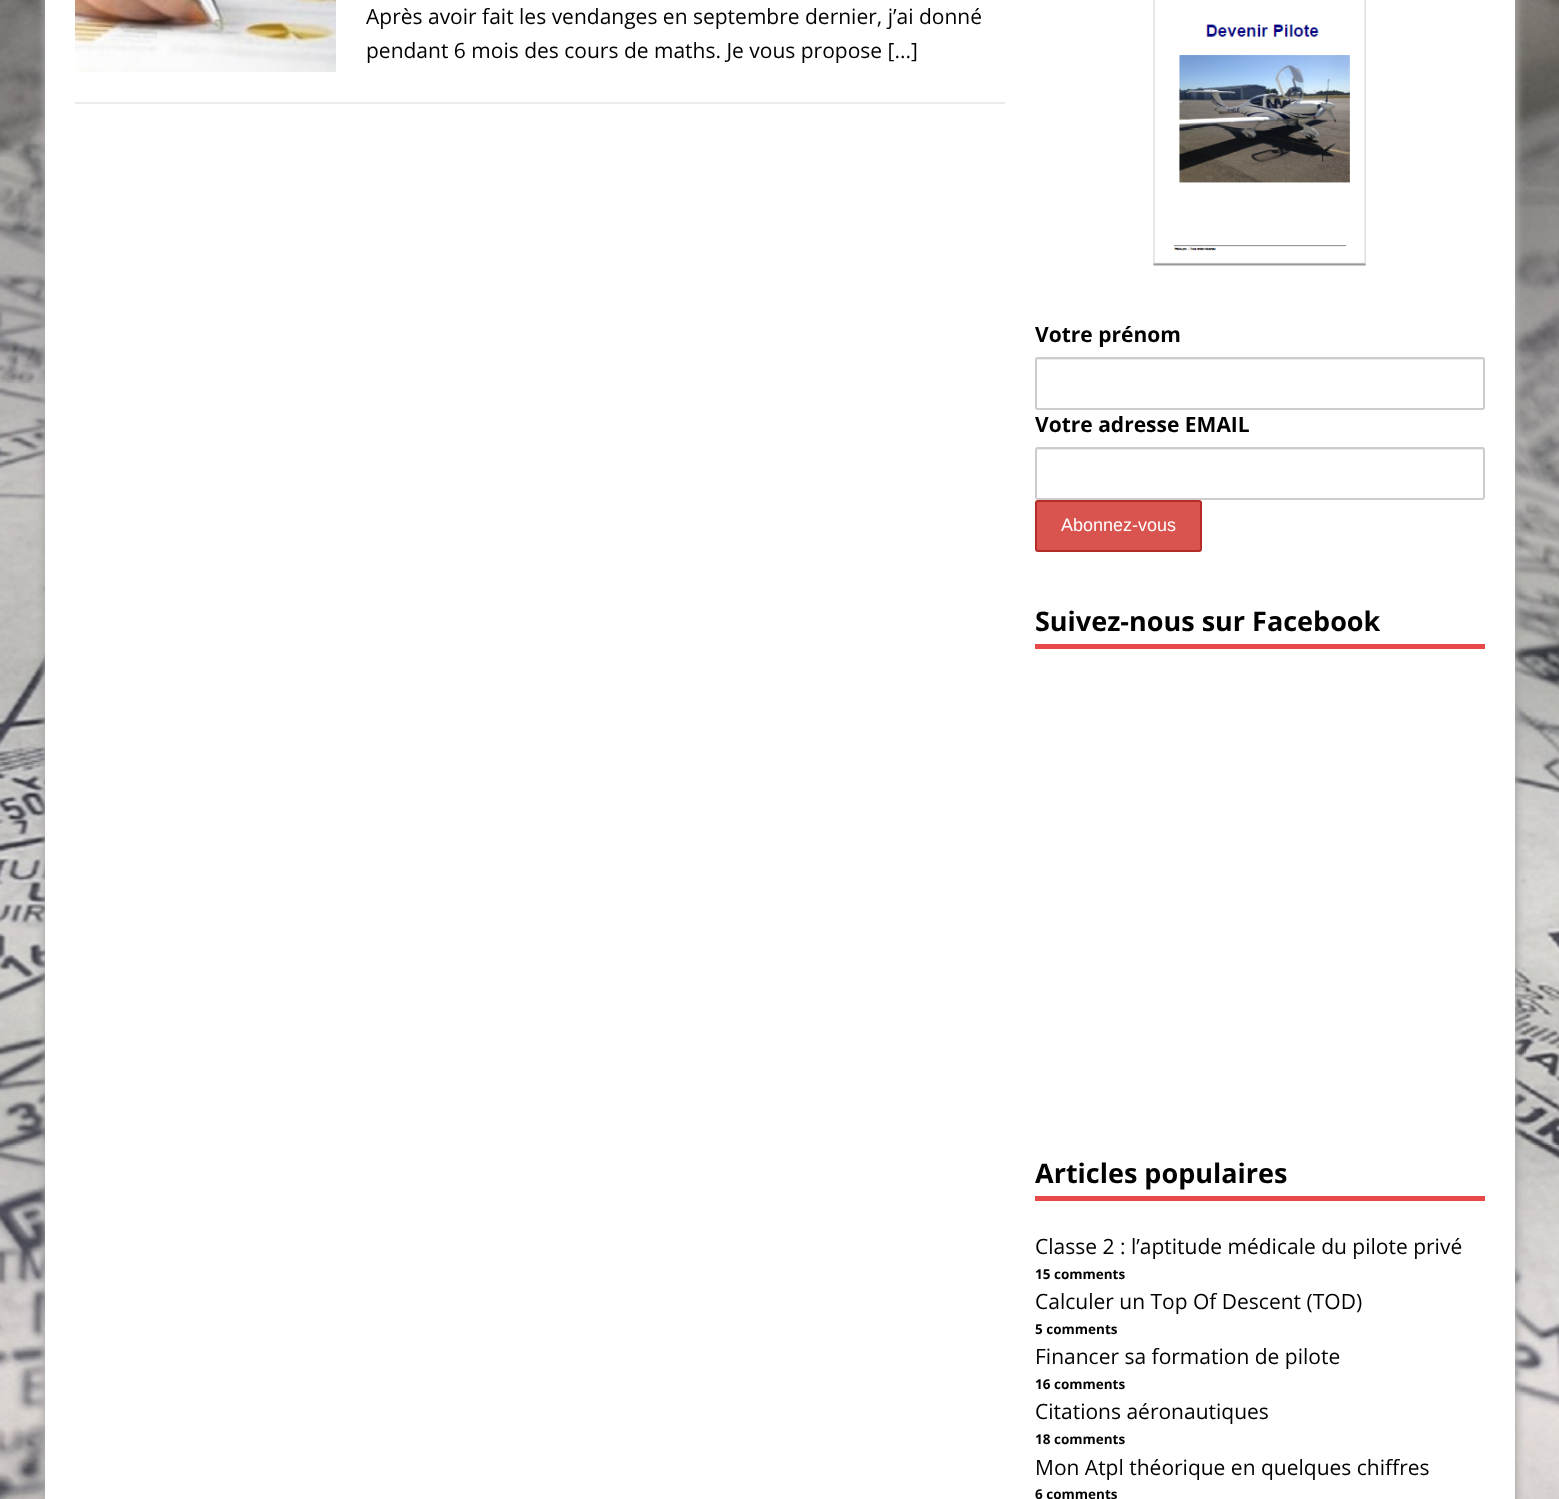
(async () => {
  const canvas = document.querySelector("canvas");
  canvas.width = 1559;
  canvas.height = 1499;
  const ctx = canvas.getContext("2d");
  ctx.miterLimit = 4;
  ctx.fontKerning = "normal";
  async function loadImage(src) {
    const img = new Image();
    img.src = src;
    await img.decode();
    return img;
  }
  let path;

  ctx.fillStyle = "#ffffff";
  ctx.fillRect(0, 0, 1559, 1499);
  ctx.drawImage(await loadImage("img/1.png"), 0, 0, 1559, 1499);
  ctx.fillStyle = "#a8a8a8";
  ctx.filter = "blur(4px)";
  ctx.beginPath();
  ctx.rect(44, -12, 1473, 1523);
  ctx.fill();
  ctx.filter = "none";
  ctx.fillStyle = "#ffffff";
  ctx.fillRect(45, 0, 1470, 1499);
  ctx.fillStyle = "#ebebeb";
  ctx.fillRect(75, 102, 930, 2);
  ctx.drawImage(await loadImage("img/2.png"), 75, 0, 261, 72);
  ctx.drawImage(await loadImage("img/3.png"), 1153, 0, 213, 266);
  ctx.fillStyle = "#ececec";
  path = new Path2D("M1038 360H1482C1483 360 1484 361 1484 362V360C1484 360 1483 359 1482 359H1038C1038 359 1037 360 1037 360Z");
  ctx.fill(path);
  ctx.beginPath();
  ctx.roundRect(1036, 358, 448, 51, 2);
  ctx.strokeStyle = "#cccccc";
  ctx.lineWidth = 2;
  ctx.stroke();
  path = new Path2D("M1038 450H1482C1483 450 1484 451 1484 452V450C1484 450 1483 449 1482 449H1038C1038 449 1037 450 1037 450Z");
  ctx.fill(path);
  ctx.beginPath();
  ctx.roundRect(1036, 448, 448, 51, 2);
  ctx.stroke();
  ctx.fillStyle = "#d9534f";
  ctx.beginPath();
  ctx.roundRect(1036, 501, 165, 50, 2);
  ctx.fill();
  ctx.strokeStyle = "#b52b27";
  ctx.stroke();
  ctx.fillStyle = "#e64946";
  ctx.fillRect(1035, 644, 450, 5);
  ctx.fillRect(1035, 1196, 450, 5);
  ctx.font = "21px Open Sans";
  ctx.fillStyle = "#000000";
  ctx.fillText("Après avoir fait les vendanges en septembre dernier, j’ai donné", 366, 24);
  ctx.fillText("pendant 6 mois des cours de maths. Je vous propose [...]", 366, 58);
  ctx.font = "bold 21px Open Sans";
  ctx.fillText("Votre prénom", 1035, 342);
  ctx.fillText("Votre adresse EMAIL", 1035, 432);
  ctx.font = "18px Liberation Sans";
  ctx.fillStyle = "#ffffff";
  ctx.fillText("Abonnez-vous", 1061, 531);
  ctx.font = "bold 27px Open Sans";
  ctx.fillStyle = "#000000";
  ctx.fillText("Suivez-nous sur Facebook", 1035, 631);
  ctx.fillText("Articles populaires", 1035, 1183);
  ctx.font = "21px Open Sans";
  ctx.fillText("Classe 2 : l’aptitude médicale du pilote privé", 1035, 1254);
  ctx.font = "bold 13.5px Open Sans";
  ctx.fillText("15 comments", 1035, 1279);
  ctx.font = "21px Open Sans";
  ctx.fillText("Calculer un Top Of Descent (TOD)", 1035, 1309);
  ctx.font = "bold 13.5px Open Sans";
  ctx.fillText("5 comments", 1035, 1334);
  ctx.font = "21px Open Sans";
  ctx.fillText("Financer sa formation de pilote", 1035, 1364);
  ctx.font = "bold 13.5px Open Sans";
  ctx.fillText("16 comments", 1035, 1389);
  ctx.font = "21px Open Sans";
  ctx.fillText("Citations aéronautiques", 1035, 1419);
  ctx.font = "bold 13.5px Open Sans";
  ctx.fillText("18 comments", 1035, 1444);
  ctx.font = "21px Open Sans";
  ctx.fillText("Mon Atpl théorique en quelques chiffres", 1035, 1475);
  ctx.font = "bold 13.5px Open Sans";
  ctx.fillText("6 comments", 1035, 1499);
})();
